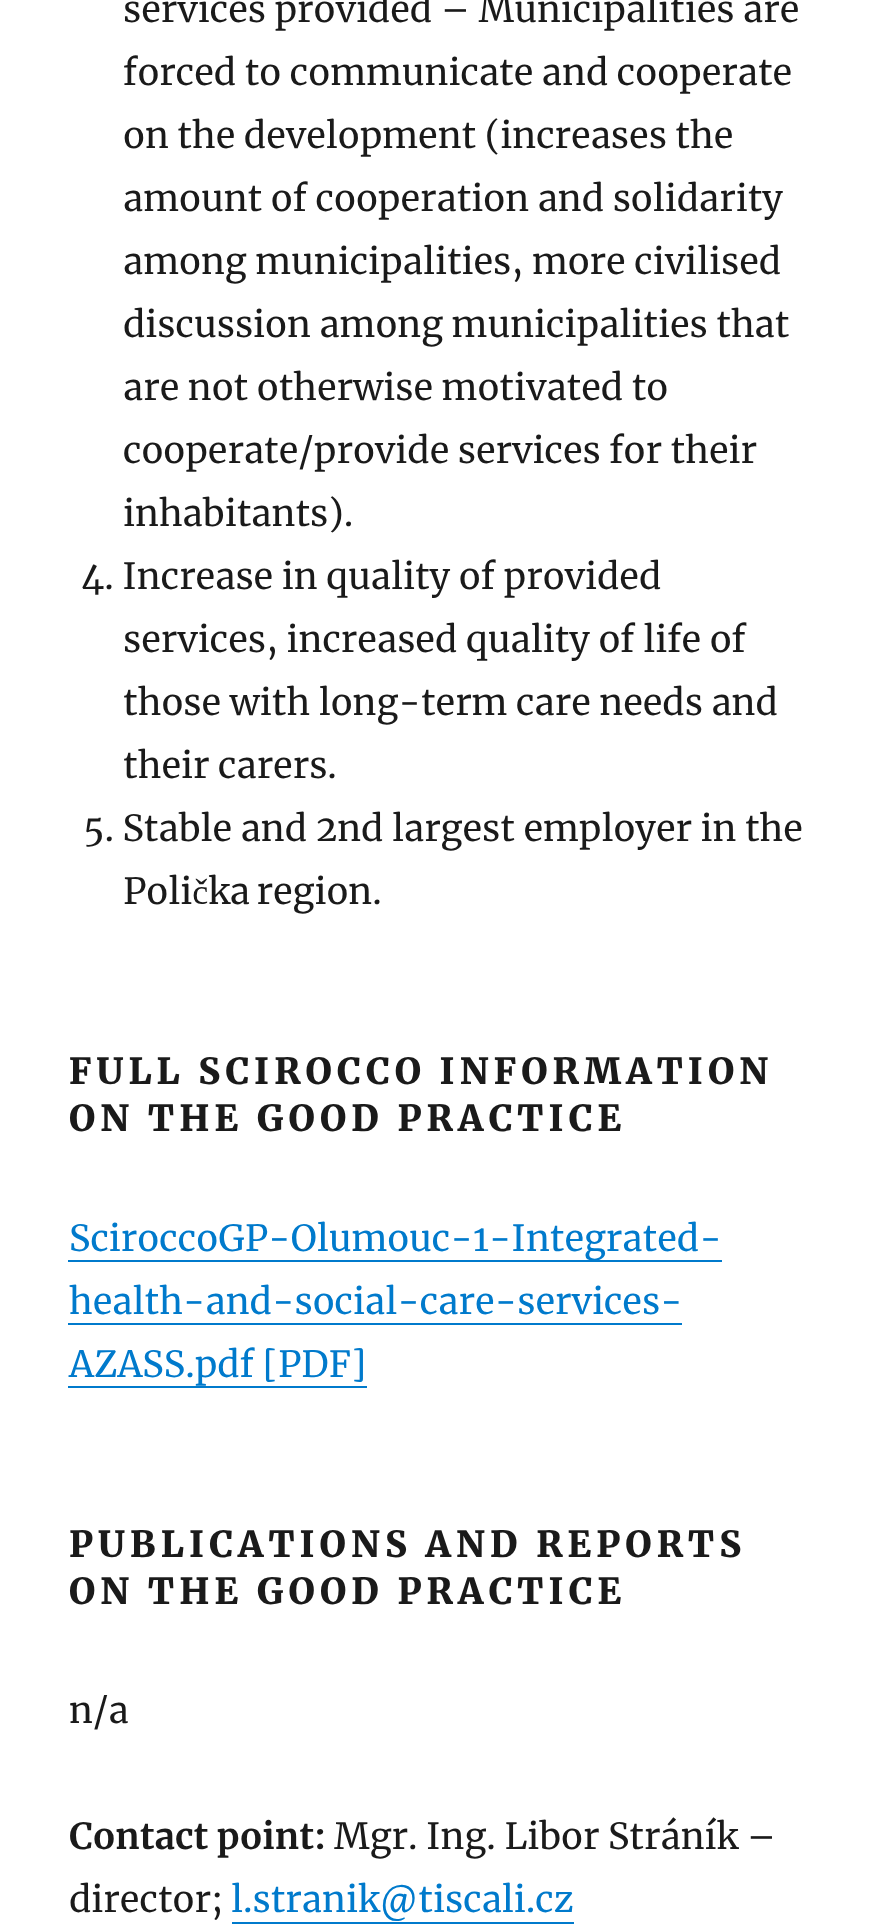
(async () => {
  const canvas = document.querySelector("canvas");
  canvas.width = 889;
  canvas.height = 1930;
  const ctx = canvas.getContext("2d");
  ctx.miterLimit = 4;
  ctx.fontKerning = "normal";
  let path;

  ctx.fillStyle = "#ffffff";
  ctx.fillRect(0, 0, 889, 1930);
  ctx.fillStyle = "#007acc";
  ctx.fillRect(68, 1260, 654, 2);
  path = new Path2D("M68 1323V1325H682V1280V1323Z");
  ctx.fill(path);
  path = new Path2D("M68 1386V1388H367V1343V1386Z");
  ctx.fill(path);
  path = new Path2D("M232 1922V1924H574V1879V1922Z");
  ctx.fill(path);
  ctx.font = "36px Merriweather";
  ctx.fillStyle = "#1a1a1a";
  for (const [text, x, y] of [
    ["services provided – Municipalities are", 123, 22],
    ["forced to communicate and cooperate", 123, 85],
    ["on the development (increases the", 123, 148],
    ["amount of cooperation and solidarity", 123, 211],
    ["among municipalities, more civilised", 123, 274],
    ["discussion among municipalities that", 123, 337],
    ["are not otherwise motivated to", 123, 400],
    ["cooperate/provide services for their", 123, 463],
    ["inhabitants).", 123, 526],
    ["4. Increase in quality of provided", 81, 589],
    ["services, increased quality of life of", 123, 652],
    ["those with long-term care needs and", 123, 715],
    ["their carers.", 123, 778],
    ["5. Stable and 2nd largest employer in the", 83, 841],
  ]) {
    ctx.fillText(text, x, y);
  }
  ctx.wordSpacing = "-2px";
  ctx.fillText("Polička region.", 123, 904);
  ctx.letterSpacing = "5.05px";
  ctx.wordSpacing = "0px";
  ctx.font = "900 36px Merriweather";
  ctx.fillText("FULL SCIROCCO INFORMATION", 69, 1084);
  ctx.fillText("ON THE GOOD PRACTICE", 69, 1131);
  ctx.letterSpacing = "0px";
  ctx.font = "36px Merriweather";
  ctx.fillStyle = "#007acc";
  for (const [text, x, y] of [
    ["SciroccoGP-Olumouc-1-Integrated-", 69, 1251],
    ["health-and-social-care-services-", 69, 1314],
    ["AZASS.pdf [PDF]", 69, 1377],
  ]) {
    ctx.fillText(text, x, y);
  }
  ctx.letterSpacing = "5.05px";
  ctx.font = "900 36px Merriweather";
  ctx.fillStyle = "#1a1a1a";
  ctx.fillText("PUBLICATIONS AND REPORTS", 69, 1557);
  ctx.fillText("ON THE GOOD PRACTICE", 69, 1604);
  ctx.letterSpacing = "0px";
  ctx.font = "36px Merriweather";
  ctx.fillText("n/a", 69, 1723);
  ctx.font = "bold 36px Merriweather";
  ctx.fillText("Contact point:", 69, 1849);
  ctx.font = "36px Merriweather";
  ctx.fillText("Mgr. Ing. Libor Stráník –", 334, 1849);
  ctx.fillText("director;", 69, 1912);
  ctx.fillStyle = "#007acc";
  ctx.fillText("l.stranik@tiscali.cz", 231, 1912);
})();
